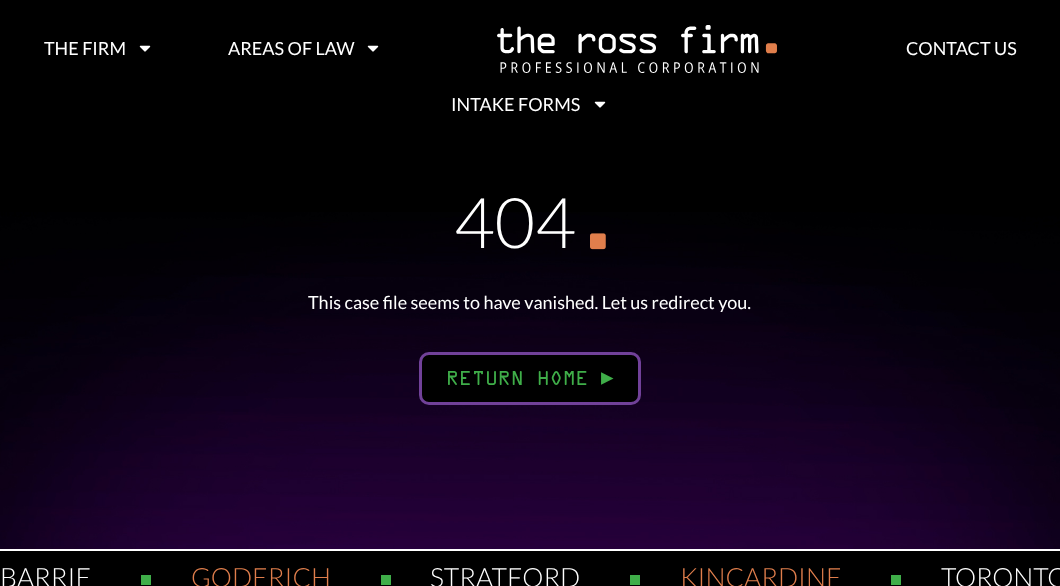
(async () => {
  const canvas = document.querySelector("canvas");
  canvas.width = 1060;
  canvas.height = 586;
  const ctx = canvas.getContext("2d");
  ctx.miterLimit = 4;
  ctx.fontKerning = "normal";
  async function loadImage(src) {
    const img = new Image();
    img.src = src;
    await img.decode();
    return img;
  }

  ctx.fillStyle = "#000000";
  ctx.fillRect(0, 0, 1060, 586);
  ctx.drawImage(await loadImage("img/1.png"), 0, 212, 1060, 337);
  ctx.drawImage(await loadImage("img/2.png"), 139, 45, 12, 7);
  ctx.drawImage(await loadImage("img/2.png"), 367, 45, 12, 7);
  ctx.drawImage(await loadImage("img/3.png"), 497, 25, 280, 48);
  ctx.drawImage(await loadImage("img/2.png"), 594, 101, 12, 7);
  ctx.drawImage(await loadImage("img/4.png"), 590, 233, 16, 17);
  ctx.beginPath();
  ctx.roundRect(420.5, 353.5, 219, 50, 8.5);
  ctx.fill();
  ctx.strokeStyle = "#714199";
  ctx.lineWidth = 3;
  ctx.stroke();
  for (const [x, y, w, h, color] of [
    [0, 549, 1060, 2, "#ffffff"],
    [141, 575, 10, 10, "#3fae49"],
    [381, 575, 10, 10, "#3fae49"],
    [630, 575, 10, 10, "#3fae49"],
    [891, 575, 10, 10, "#3fae49"],
  ]) {
    ctx.fillStyle = color;
    ctx.fillRect(x, y, w, h);
  }
  ctx.font = "18px Lato";
  ctx.fillStyle = "#ffffff";
  for (const [text, x, y] of [
    ["THE FIRM", 44, 55],
    ["AREAS OF LAW", 228, 55],
    ["CONTACT US", 906, 55],
    ["INTAKE FORMS", 451, 111],
  ]) {
    ctx.fillText(text, x, y);
  }
  ctx.font = "300 70px Lato";
  ctx.fillText("404", 454, 248);
  ctx.font = "18px Lato";
  ctx.fillText("This case file seems to have vanished. Let us redirect you.", 308, 309);
  ctx.font = "18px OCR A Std";
  ctx.fillStyle = "#3fae49";
  ctx.fillText("RETURN HOME", 446, 385);
  ctx.font = "25px DejaVu Sans";
  ctx.fillText("▸", 601, 385);
  ctx.font = "300 26.5px Lato";
  ctx.fillStyle = "#ffffff";
  ctx.fillText("BARRIE", 0, 587);
  ctx.fillStyle = "#e07e4c";
  ctx.fillText("GODERICH", 191, 587);
  ctx.fillStyle = "#ffffff";
  ctx.fillText("STRATFORD", 430, 587);
  ctx.fillStyle = "#e07e4c";
  ctx.fillText("KINCARDINE", 680, 587);
  ctx.fillStyle = "#ffffff";
  ctx.fillText("TORONTO", 941, 587);
})();
